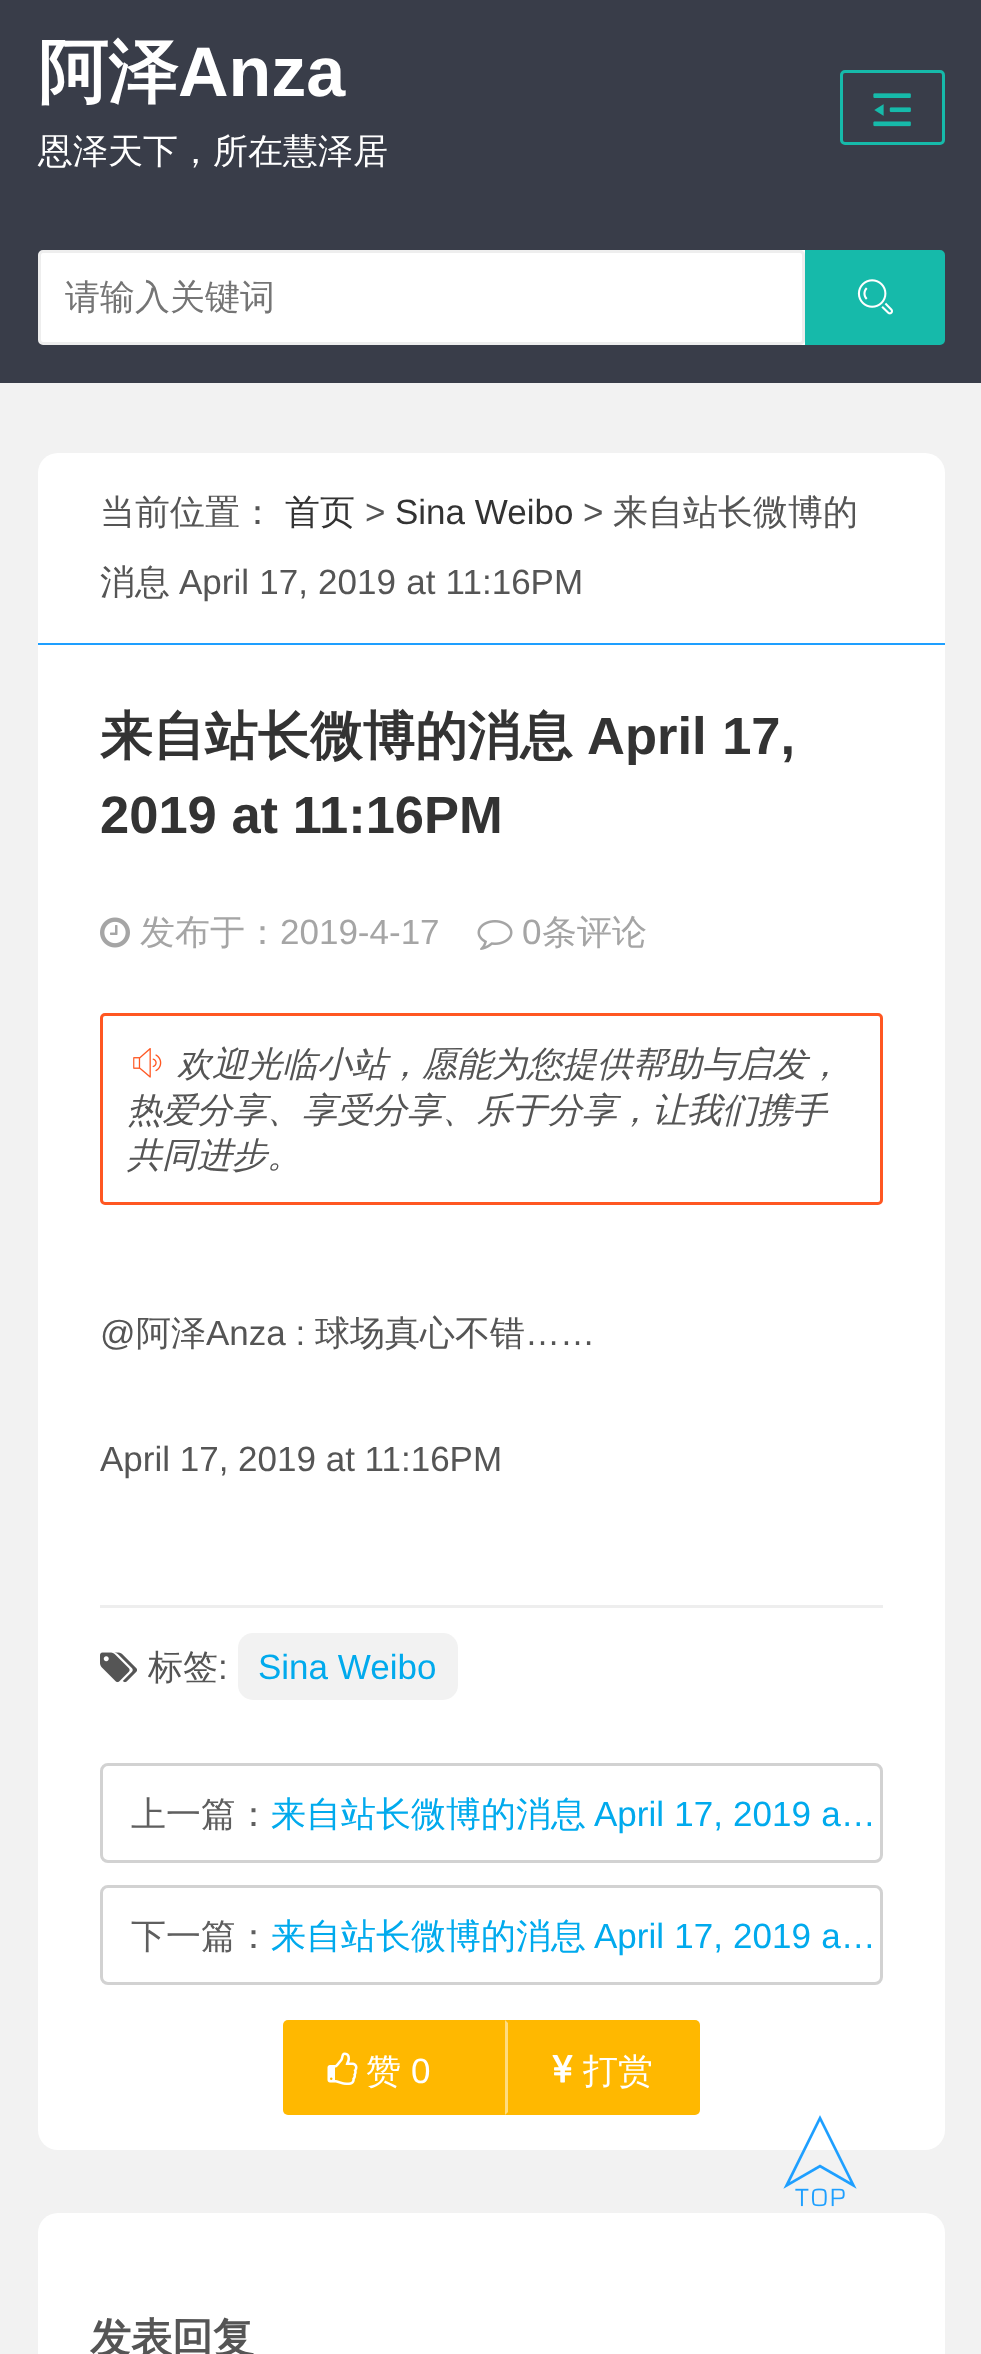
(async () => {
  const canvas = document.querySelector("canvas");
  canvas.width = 981;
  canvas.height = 2354;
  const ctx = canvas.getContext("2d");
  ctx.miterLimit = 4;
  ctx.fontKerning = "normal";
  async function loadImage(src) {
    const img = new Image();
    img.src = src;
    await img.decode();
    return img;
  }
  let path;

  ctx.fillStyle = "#f2f2f2";
  ctx.fillRect(0, 0, 981, 2354);
  ctx.fillStyle = "#393d49";
  ctx.fillRect(0, 0, 981, 383);
  ctx.beginPath();
  ctx.roundRect(841.5, 71.5, 102, 72, 3.5);
  ctx.strokeStyle = "#16baaa";
  ctx.lineWidth = 3;
  ctx.stroke();
  ctx.drawImage(await loadImage("img/1.png"), 873, 93, 38, 34);
  ctx.fillStyle = "#ffffff";
  ctx.beginPath();
  ctx.roundRect(38, 250, 907, 95, 20);
  ctx.fill();
  ctx.beginPath();
  ctx.roundRect(39.5, 251.5, 764, 92, 3.5);
  ctx.fill();
  ctx.strokeStyle = "#eeeeee";
  ctx.stroke();
  ctx.fillStyle = "#16baaa";
  ctx.beginPath();
  ctx.roundRect(806.5, 251.5, 137, 92, [0, 3.5, 3.5, 0]);
  ctx.fill();
  ctx.strokeStyle = "#16baaa";
  ctx.stroke();
  ctx.drawImage(await loadImage("img/2.png"), 857, 279, 36, 36);
  ctx.fillStyle = "#ffffff";
  ctx.beginPath();
  ctx.roundRect(38, 453, 907, 192, [20, 20, 0, 0]);
  ctx.fill();
  ctx.fillStyle = "#1e9fff";
  ctx.fillRect(38, 643, 907, 2);
  ctx.fillStyle = "#ffffff";
  ctx.beginPath();
  ctx.roundRect(38, 645, 907, 1505, [0, 0, 20, 20]);
  ctx.fill();
  ctx.drawImage(await loadImage("img/3.png"), 100, 917, 30, 31);
  ctx.drawImage(await loadImage("img/4.png"), 477, 920, 36, 30);
  ctx.beginPath();
  ctx.roundRect(101.5, 1014.5, 780, 189, 3.5);
  ctx.strokeStyle = "#ff5722";
  ctx.stroke();
  ctx.drawImage(await loadImage("img/5.png"), 133, 1048, 29, 30);
  ctx.fillStyle = "#eeeeee";
  ctx.fillRect(100, 1605, 783, 3);
  ctx.drawImage(await loadImage("img/6.png"), 100, 1652, 37, 31);
  ctx.fillStyle = "#f2f2f2";
  ctx.beginPath();
  ctx.roundRect(238, 1633, 220, 67, 15);
  ctx.fill();
  ctx.beginPath();
  ctx.roundRect(101.5, 1764.5, 780, 97, 6.5);
  ctx.strokeStyle = "#d2d2d2";
  ctx.stroke();
  ctx.beginPath();
  ctx.roundRect(101.5, 1886.5, 780, 97, 6.5);
  ctx.stroke();
  ctx.fillStyle = "#ffb800";
  ctx.beginPath();
  ctx.roundRect(283, 2020, 222, 95, [5, 0, 0, 5]);
  ctx.fill();
  ctx.drawImage(await loadImage("img/7.png"), 327, 2052, 31, 33);
  ctx.beginPath();
  ctx.roundRect(505, 2020, 195, 95, [0, 5, 5, 0]);
  ctx.fill();
  ctx.fillStyle = "#ffdc80";
  path = new Path2D("M505 2020V2115L508 2112V2023Z");
  ctx.fill(path);
  ctx.drawImage(await loadImage("img/8.png"), 552, 2055, 21, 28);
  ctx.fillStyle = "#ffffff";
  ctx.beginPath();
  ctx.roundRect(38, 2213, 907, 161, 20);
  ctx.fill();
  ctx.drawImage(await loadImage("img/9.png"), 783, 2115, 74, 92);
  ctx.font = "bold 70px WenQuanYi Zen Hei";
  ctx.fillText("阿泽", 38, 96);
  ctx.font = "bold 70px Liberation Sans";
  ctx.fillText("Anza", 178, 96);
  ctx.font = "500 35px WenQuanYi Zen Hei";
  ctx.fillText("恩泽天下，所在慧泽居", 38, 163);
  ctx.fillStyle = "#757575";
  ctx.fillText("请输入关键词", 65, 309);
  ctx.fillStyle = "#555555";
  ctx.fillText("当前位置：", 100, 524);
  ctx.fillStyle = "#333333";
  ctx.fillText("首页", 285, 524);
  ctx.font = "35px Liberation Sans";
  ctx.fillStyle = "#555555";
  ctx.fillText(">", 365, 524);
  ctx.fillStyle = "#333333";
  ctx.fillText("Sina Weibo", 395, 524);
  ctx.fillStyle = "#555555";
  ctx.fillText(">", 583, 524);
  ctx.font = "500 35px WenQuanYi Zen Hei";
  ctx.fillText("来自站长微博的", 613, 524);
  ctx.fillText("消息", 100, 594);
  ctx.wordSpacing = "0.5px";
  ctx.font = "35px Liberation Sans";
  ctx.fillText("April 17, 2019 at 11:16PM", 179, 594);
  ctx.wordSpacing = "0px";
  ctx.font = "bold 52.5px WenQuanYi Zen Hei";
  ctx.fillStyle = "#333333";
  ctx.fillText("来自站长微博的消息", 100, 754);
  ctx.wordSpacing = "1px";
  ctx.font = "bold 52.5px Liberation Sans";
  ctx.fillText("April 17,", 587, 754);
  ctx.wordSpacing = "0px";
  ctx.fillText("2019 at 11:16PM", 100, 833);
  ctx.font = "500 35px WenQuanYi Zen Hei";
  ctx.fillStyle = "#a5a5a5";
  ctx.fillText("发布于：", 140, 944);
  ctx.font = "35px Liberation Sans";
  ctx.fillText("2019-4-17", 280, 944);
  ctx.fillText("0", 522, 944);
  ctx.font = "500 35px WenQuanYi Zen Hei";
  ctx.fillText("条评论", 542, 944);
  ctx.font = "italic 500 35px WenQuanYi Zen Hei";
  ctx.fillStyle = "#555555";
  for (const [text, x, y] of [
    ["欢迎光临小站，愿能为您提供帮助与启发，", 177, 1076],
    ["热爱分享、享受分享、乐于分享，让我们携手", 127, 1122],
    ["共同进步。", 127, 1167],
  ]) {
    ctx.fillText(text, x, y);
  }
  ctx.font = "35px Liberation Sans";
  ctx.fillText("@", 100, 1345);
  ctx.font = "500 35px WenQuanYi Zen Hei";
  ctx.fillText("阿泽", 136, 1345);
  ctx.font = "35px Liberation Sans";
  ctx.fillText("Anza :", 206, 1345);
  ctx.font = "500 35px WenQuanYi Zen Hei";
  ctx.fillText("球场真心不错", 315, 1345);
  ctx.font = "35px Liberation Sans";
  ctx.fillText("……", 525, 1345);
  ctx.fillText("April 17, 2019 at 11:16PM", 100, 1471);
  ctx.font = "500 35px WenQuanYi Zen Hei";
  ctx.fillText("标签", 148, 1679);
  ctx.font = "35px Liberation Sans";
  ctx.fillText(":", 218, 1679);
  ctx.fillStyle = "#01aaed";
  ctx.fillText("Sina Weibo", 258, 1679);
  ctx.font = "500 35px WenQuanYi Zen Hei";
  ctx.fillStyle = "#5f5f5f";
  ctx.fillText("上一篇：", 131, 1826);
  ctx.fillStyle = "#01aaed";
  ctx.fillText("来自站长微博的消息", 271, 1826);
  ctx.wordSpacing = "0.5px";
  ctx.font = "35px Liberation Sans";
  ctx.fillText("April 17, 2019 a…", 594, 1826);
  ctx.wordSpacing = "0px";
  ctx.font = "500 35px WenQuanYi Zen Hei";
  ctx.fillStyle = "#5f5f5f";
  ctx.fillText("下一篇：", 131, 1948);
  ctx.fillStyle = "#01aaed";
  ctx.fillText("来自站长微博的消息", 271, 1948);
  ctx.wordSpacing = "0.5px";
  ctx.font = "35px Liberation Sans";
  ctx.fillText("April 17, 2019 a…", 594, 1948);
  ctx.wordSpacing = "0px";
  ctx.font = "500 35px WenQuanYi Zen Hei";
  ctx.fillStyle = "#ffffff";
  ctx.fillText("赞", 366, 2083);
  ctx.font = "35px Liberation Sans";
  ctx.fillText("0", 411, 2083);
  ctx.font = "500 35px WenQuanYi Zen Hei";
  ctx.fillText("打赏", 583, 2083);
  ctx.font = "bold 41px WenQuanYi Zen Hei";
  ctx.fillStyle = "#555555";
  ctx.fillText("发表回复", 90, 2352);
})();
